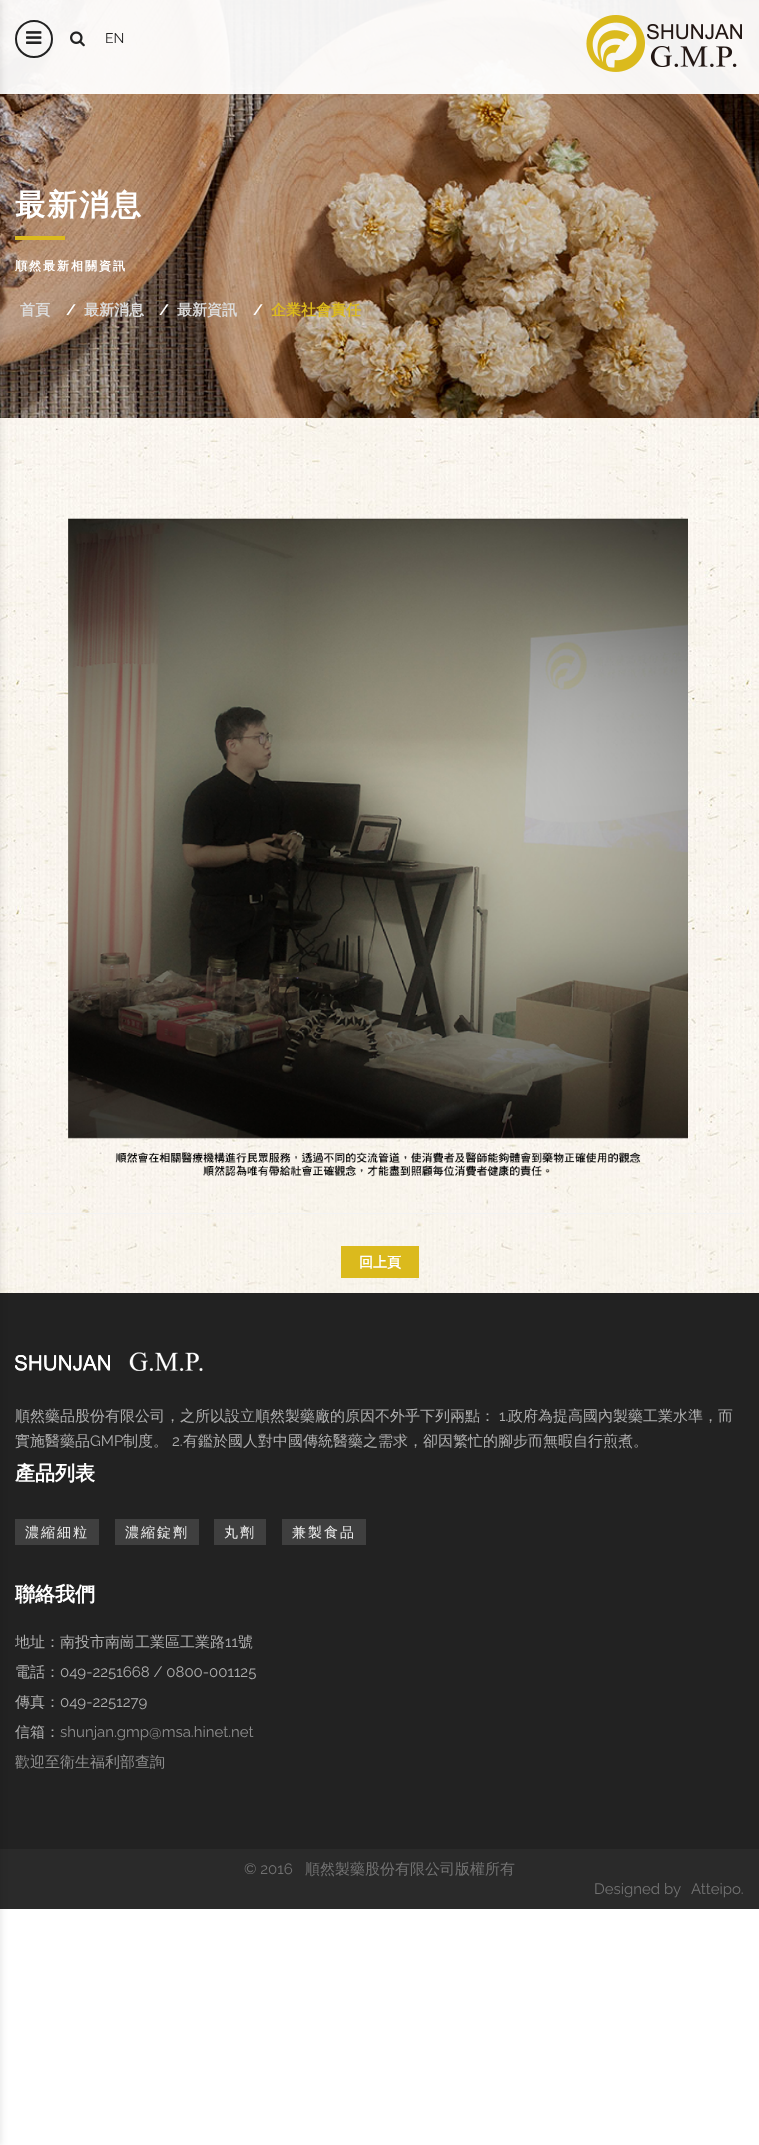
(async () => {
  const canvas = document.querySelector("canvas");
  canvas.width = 759;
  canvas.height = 2145;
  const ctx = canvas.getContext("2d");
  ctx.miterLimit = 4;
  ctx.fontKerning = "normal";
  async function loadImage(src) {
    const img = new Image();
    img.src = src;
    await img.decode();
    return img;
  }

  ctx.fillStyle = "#ffffff";
  ctx.fillRect(0, 0, 759, 2145);
  ctx.drawImage(await loadImage("img/4.png"), 0, 0, 759, 418);
  ctx.fillStyle = "rgba(255, 255, 255, 0.95)";
  ctx.fillRect(0, 0, 759, 94);
  ctx.drawImage(await loadImage("img/5.png"), 0, 418, 759, 875);
  ctx.fillStyle = "#222222";
  ctx.fillRect(0, 1293, 759, 556);
  ctx.fillStyle = "#2a2a2a";
  ctx.fillRect(0, 1849, 759, 60);
  ctx.fillStyle = "rgba(0, 0, 0, 0.1)";
  ctx.filter = "blur(3.5px)";
  ctx.beginPath();
  ctx.rect(-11, -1, 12, 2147);
  ctx.fill();
  ctx.filter = "none";
  ctx.beginPath();
  ctx.arc(34, 39, 18, 0, Math.PI * 2);
  ctx.strokeStyle = "#222222";
  ctx.lineWidth = 2;
  ctx.stroke();
  ctx.drawImage(await loadImage("img/1.png"), 26, 31, 16, 13);
  ctx.drawImage(await loadImage("img/2.png"), 70, 31, 15, 16);
  ctx.drawImage(await loadImage("img/3.png"), 586, 15, 156, 57);
  ctx.fillStyle = "#dbba1d";
  ctx.fillRect(15, 236, 50, 4);
  ctx.fillStyle = "#f3f3f3";
  ctx.fillRect(15, 1213, 729, 1);
  ctx.drawImage(await loadImage("img/6.png"), 68, 518, 620, 659);
  ctx.fillStyle = "#dbba1d";
  ctx.fillRect(341, 1246, 78, 32);
  ctx.drawImage(await loadImage("img/7.png"), 15, 1352, 188, 19);
  for (const [x, y, w, h, color] of [
    [15, 1519, 84, 26, "#3f3f3f"],
    [115, 1519, 84, 26, "#3f3f3f"],
    [214, 1519, 52, 26, "#3f3f3f"],
    [282, 1519, 84, 26, "#3f3f3f"],
  ]) {
    ctx.fillStyle = color;
    ctx.fillRect(x, y, w, h);
  }
  ctx.font = "14px Raleway";
  ctx.fillStyle = "#222222";
  ctx.fillText("EN", 105, 43);
  ctx.letterSpacing = "2px";
  ctx.font = "bold 30px WenQuanYi Zen Hei";
  ctx.fillStyle = "#ffffff";
  ctx.fillText("最新消息", 15, 215);
  ctx.font = "bold 12px WenQuanYi Zen Hei";
  ctx.fillText("順然最新相關資訊", 15, 270);
  ctx.letterSpacing = "0px";
  ctx.font = "bold 15px WenQuanYi Zen Hei";
  ctx.fillStyle = "#dbdbdb";
  ctx.fillText("首頁", 20, 315);
  ctx.font = "600 15px Raleway";
  ctx.fillStyle = "#ffffff";
  ctx.fillText("/", 66, 315);
  ctx.font = "bold 15px WenQuanYi Zen Hei";
  ctx.fillStyle = "#dbdbdb";
  ctx.fillText("最新消息", 84, 315);
  ctx.font = "600 15px Raleway";
  ctx.fillStyle = "#ffffff";
  ctx.fillText("/", 159, 315);
  ctx.font = "bold 15px WenQuanYi Zen Hei";
  ctx.fillStyle = "#dbdbdb";
  ctx.fillText("最新資訊", 177, 315);
  ctx.font = "600 15px Raleway";
  ctx.fillStyle = "#ffffff";
  ctx.fillText("/", 253, 315);
  ctx.font = "bold 15px WenQuanYi Zen Hei";
  ctx.fillStyle = "#dbba1d";
  ctx.fillText("企業社會責任", 271, 315);
  ctx.font = "bold 14px WenQuanYi Zen Hei";
  ctx.fillStyle = "#ffffff";
  ctx.fillText("回上頁", 359, 1267);
  ctx.font = "500 15px WenQuanYi Zen Hei";
  ctx.fillStyle = "#aeaeae";
  ctx.fillText("順然藥品股份有限公司，之所以設立順然製藥廠的原因不外乎下列兩點：", 15, 1421);
  ctx.font = "15px Raleway";
  ctx.fillText("1.", 499, 1421);
  ctx.font = "500 15px WenQuanYi Zen Hei";
  ctx.fillText("政府為提高國內製藥工業水準，而", 508, 1421);
  ctx.fillText("實施醫藥品", 15, 1446);
  ctx.font = "15px Raleway";
  ctx.fillText("GMP", 90, 1446);
  ctx.font = "500 15px WenQuanYi Zen Hei";
  ctx.fillText("制度。", 123, 1446);
  ctx.font = "15px Raleway";
  ctx.fillText("2.", 172, 1446);
  ctx.font = "500 15px WenQuanYi Zen Hei";
  ctx.fillText("有鑑於國人對中國傳統醫藥之需求，卻因繁忙的腳步而無暇自行煎煮。", 183, 1446);
  ctx.font = "bold 20px WenQuanYi Zen Hei";
  ctx.fillStyle = "#ffffff";
  ctx.fillText("產品列表", 15, 1480);
  ctx.letterSpacing = "2px";
  ctx.font = "500 14px WenQuanYi Zen Hei";
  ctx.fillStyle = "#eeeeee";
  for (const [text, x, y] of [
    ["濃縮細粒", 25, 1537],
    ["濃縮錠劑", 125, 1537],
    ["丸劑", 224, 1537],
    ["兼製食品", 292, 1537],
  ]) {
    ctx.fillText(text, x, y);
  }
  ctx.letterSpacing = "0px";
  ctx.font = "bold 20px WenQuanYi Zen Hei";
  ctx.fillStyle = "#ffffff";
  ctx.fillText("聯絡我們", 15, 1601);
  ctx.font = "500 15px WenQuanYi Zen Hei";
  ctx.fillStyle = "#aeaeae";
  ctx.fillText("地址：南投市南崗工業區工業路", 15, 1647);
  ctx.font = "15px Raleway";
  ctx.fillText("11", 225, 1647);
  ctx.font = "500 15px WenQuanYi Zen Hei";
  ctx.fillText("號", 238, 1647);
  ctx.fillText("電話：", 15, 1677);
  ctx.font = "15px Raleway";
  ctx.fillText("049-2251668 / 0800-001125", 60, 1677);
  ctx.font = "500 15px WenQuanYi Zen Hei";
  ctx.fillText("傳真：", 15, 1707);
  ctx.font = "15px Raleway";
  ctx.fillText("049-2251279", 60, 1707);
  ctx.font = "500 15px WenQuanYi Zen Hei";
  ctx.fillText("信箱：", 15, 1737);
  ctx.font = "15px Raleway";
  ctx.fillStyle = "#8f8f8f";
  ctx.fillText("shunjan.gmp@msa.hinet.net", 60, 1737);
  ctx.font = "500 15px WenQuanYi Zen Hei";
  ctx.fillText("歡迎至衛生福利部查詢", 15, 1767);
  ctx.font = "15px Raleway";
  ctx.fillStyle = "#727272";
  ctx.fillText("© 2016", 244, 1874);
  ctx.font = "500 15px WenQuanYi Zen Hei";
  ctx.fillText("順然製藥股份有限公司版權所有", 305, 1874);
  ctx.font = "15px Raleway";
  ctx.fillText("Designed by", 594, 1894);
  ctx.fillText("Atteipo.", 691, 1894);
})();
